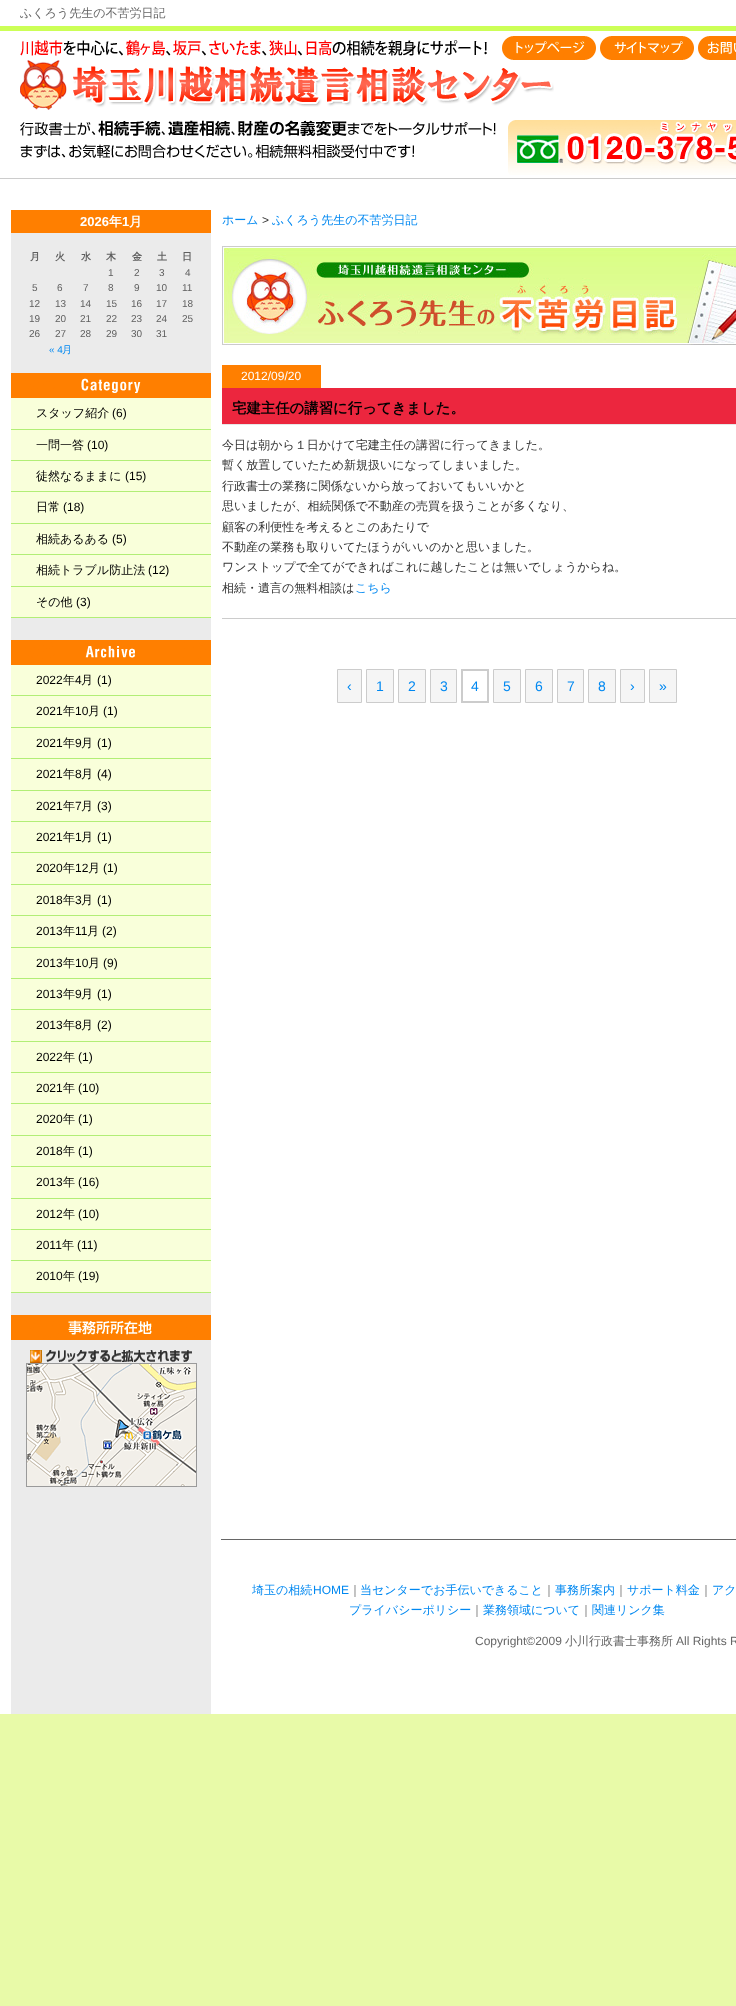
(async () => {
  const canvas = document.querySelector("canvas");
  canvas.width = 736;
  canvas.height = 2006;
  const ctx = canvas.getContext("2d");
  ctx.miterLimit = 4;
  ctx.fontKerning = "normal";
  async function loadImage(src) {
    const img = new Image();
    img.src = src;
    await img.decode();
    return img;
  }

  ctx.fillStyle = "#e8faa8";
  ctx.fillRect(0, 0, 736, 2006);
  for (const [x, y, w, h, color] of [
    [0, 26, 736, 5, "#ccff57"],
    [0, 0, 736, 26, "#ffffff"],
    [0, 31, 736, 147, "#ffffff"],
  ]) {
    ctx.fillStyle = color;
    ctx.fillRect(x, y, w, h);
  }
  ctx.drawImage(await loadImage("img/1.png"), 20, 40, 467, 16);
  ctx.drawImage(await loadImage("img/2.png"), 502, 36, 94, 24);
  ctx.drawImage(await loadImage("img/3.png"), 600, 36, 94, 24);
  ctx.drawImage(await loadImage("img/4.png"), 698, 36, 38, 24);
  ctx.drawImage(await loadImage("img/5.png"), 20, 60, 534, 50);
  ctx.drawImage(await loadImage("img/6.png"), 20, 120, 476, 38);
  ctx.drawImage(await loadImage("img/7.png"), 508, 120, 228, 55);
  for (const [x, y, w, h, color] of [
    [0, 179, 736, 1535, "#ffffff"],
    [0, 178, 736, 1, "#cccccc"],
    [11, 233, 200, 1481, "#ebebeb"],
    [11, 210, 200, 23, "#ff7f00"],
  ]) {
    ctx.fillStyle = color;
    ctx.fillRect(x, y, w, h);
  }
  ctx.drawImage(await loadImage("img/8.png"), 11, 373, 200, 25);
  for (const [x, y, w, h, color] of [
    [11, 398, 200, 31, "#f9ffda"],
    [11, 429, 200, 1, "#b2ee76"],
    [11, 430, 200, 30, "#f9ffda"],
    [11, 460, 200, 1, "#b2ee76"],
    [11, 461, 200, 30, "#f9ffda"],
    [11, 491, 200, 1, "#b2ee76"],
    [11, 492, 200, 31, "#f9ffda"],
    [11, 523, 200, 1, "#b2ee76"],
    [11, 524, 200, 30, "#f9ffda"],
    [11, 554, 200, 1, "#b2ee76"],
    [11, 555, 200, 31, "#f9ffda"],
    [11, 586, 200, 1, "#b2ee76"],
    [11, 587, 200, 30, "#f9ffda"],
    [11, 617, 200, 1, "#b2ee76"],
  ]) {
    ctx.fillStyle = color;
    ctx.fillRect(x, y, w, h);
  }
  ctx.drawImage(await loadImage("img/9.png"), 11, 640, 200, 25);
  for (const [x, y, w, h, color] of [
    [11, 665, 200, 30, "#f9ffda"],
    [11, 695, 200, 1, "#b2ee76"],
    [11, 696, 200, 31, "#f9ffda"],
    [11, 727, 200, 1, "#b2ee76"],
    [11, 728, 200, 30, "#f9ffda"],
    [11, 758, 200, 1, "#b2ee76"],
    [11, 759, 200, 31, "#f9ffda"],
    [11, 790, 200, 1, "#b2ee76"],
    [11, 791, 200, 30, "#f9ffda"],
    [11, 821, 200, 1, "#b2ee76"],
    [11, 822, 200, 30, "#f9ffda"],
    [11, 852, 200, 1, "#b2ee76"],
    [11, 853, 200, 31, "#f9ffda"],
    [11, 884, 200, 1, "#b2ee76"],
    [11, 885, 200, 30, "#f9ffda"],
    [11, 915, 200, 1, "#b2ee76"],
    [11, 916, 200, 31, "#f9ffda"],
    [11, 947, 200, 1, "#b2ee76"],
    [11, 948, 200, 30, "#f9ffda"],
    [11, 978, 200, 1, "#b2ee76"],
    [11, 979, 200, 30, "#f9ffda"],
    [11, 1009, 200, 1, "#b2ee76"],
    [11, 1010, 200, 31, "#f9ffda"],
    [11, 1041, 200, 1, "#b2ee76"],
    [11, 1042, 200, 30, "#f9ffda"],
    [11, 1072, 200, 1, "#b2ee76"],
    [11, 1073, 200, 30, "#f9ffda"],
    [11, 1103, 200, 1, "#b2ee76"],
    [11, 1104, 200, 31, "#f9ffda"],
    [11, 1135, 200, 1, "#b2ee76"],
    [11, 1136, 200, 30, "#f9ffda"],
    [11, 1166, 200, 1, "#b2ee76"],
    [11, 1167, 200, 31, "#f9ffda"],
    [11, 1198, 200, 1, "#b2ee76"],
    [11, 1199, 200, 30, "#f9ffda"],
    [11, 1229, 200, 1, "#b2ee76"],
    [11, 1230, 200, 30, "#f9ffda"],
    [11, 1260, 200, 1, "#b2ee76"],
    [11, 1261, 200, 31, "#f9ffda"],
    [11, 1292, 200, 1, "#b2ee76"],
  ]) {
    ctx.fillStyle = color;
    ctx.fillRect(x, y, w, h);
  }
  ctx.drawImage(await loadImage("img/10.png"), 11, 1315, 200, 25);
  ctx.drawImage(await loadImage("img/11.png"), 30, 1350, 162, 13);
  ctx.drawImage(await loadImage("img/12.png"), 30, 1350, 162, 13);
  ctx.drawImage(await loadImage("img/13.png"), 26, 1363, 171, 124);
  ctx.drawImage(await loadImage("img/14.png"), 222, 246, 514, 99);
  for (const [x, y, w, h, color] of [
    [222, 618, 514, 1, "#cccccc"],
    [222, 365, 99, 23, "#ff7f00"],
    [222, 388, 514, 36, "#ec263e"],
    [222, 424, 514, 1, "#e6e6e6"],
  ]) {
    ctx.fillStyle = color;
    ctx.fillRect(x, y, w, h);
  }
  ctx.fillStyle = "#f5f5f5";
  ctx.beginPath();
  ctx.rect(337.5, 669.5, 24, 33);
  ctx.fill();
  ctx.strokeStyle = "#cccccc";
  ctx.stroke();
  ctx.beginPath();
  ctx.rect(366.5, 669.5, 27, 33);
  ctx.fill();
  ctx.stroke();
  ctx.beginPath();
  ctx.rect(398.5, 669.5, 27, 33);
  ctx.fill();
  ctx.stroke();
  ctx.beginPath();
  ctx.rect(430.5, 669.5, 26, 33);
  ctx.fill();
  ctx.stroke();
  ctx.strokeRect(461.5, 669.5, 27, 33);
  ctx.strokeRect(462.5, 670.5, 25, 31);
  ctx.beginPath();
  ctx.rect(493.5, 669.5, 27, 33);
  ctx.fill();
  ctx.stroke();
  ctx.beginPath();
  ctx.rect(525.5, 669.5, 27, 33);
  ctx.fill();
  ctx.stroke();
  ctx.beginPath();
  ctx.rect(557.5, 669.5, 26, 33);
  ctx.fill();
  ctx.stroke();
  ctx.beginPath();
  ctx.rect(588.5, 669.5, 27, 33);
  ctx.fill();
  ctx.stroke();
  ctx.beginPath();
  ctx.rect(620.5, 669.5, 24, 33);
  ctx.fill();
  ctx.stroke();
  ctx.beginPath();
  ctx.rect(649.5, 669.5, 27, 33);
  ctx.fill();
  ctx.stroke();
  ctx.fillStyle = "#666666";
  ctx.fillRect(221, 1539, 515, 1);
  ctx.font = "500 12px WenQuanYi Zen Hei";
  ctx.fillText("ふくろう先生の不苦労日記", 20, 17);
  ctx.font = "bold 13px Liberation Sans";
  ctx.fillStyle = "#ffffff";
  ctx.fillText("2026", 80, 226);
  ctx.font = "bold 13px WenQuanYi Zen Hei";
  ctx.fillText("年", 109, 226);
  ctx.font = "bold 13px Liberation Sans";
  ctx.fillText("1", 122, 226);
  ctx.font = "bold 13px WenQuanYi Zen Hei";
  ctx.fillText("月", 129, 226);
  ctx.font = "bold 10px WenQuanYi Zen Hei";
  ctx.fillStyle = "#5f5f5f";
  for (const [text, x, y] of [
    ["月", 30, 260],
    ["火", 55, 260],
    ["水", 81, 260],
    ["木", 106, 260],
    ["金", 132, 260],
    ["土", 157, 260],
    ["日", 182, 260],
  ]) {
    ctx.fillText(text, x, y);
  }
  ctx.font = "10px Liberation Sans";
  for (const [text, x, y] of [
    ["1", 108, 276],
    ["2", 134, 276],
    ["3", 159, 276],
    ["4", 185, 276],
    ["5", 32, 291],
    ["6", 57, 291],
    ["7", 83, 291],
    ["8", 108, 291],
    ["9", 134, 291],
    ["10", 156, 291],
    ["11", 182, 291],
    ["12", 29, 307],
    ["13", 55, 307],
    ["14", 80, 307],
    ["15", 106, 307],
    ["16", 131, 307],
    ["17", 156, 307],
    ["18", 182, 307],
    ["19", 29, 322],
    ["20", 55, 322],
    ["21", 80, 322],
    ["22", 106, 322],
    ["23", 131, 322],
    ["24", 156, 322],
    ["25", 182, 322],
    ["26", 29, 337],
    ["27", 55, 337],
    ["28", 80, 337],
    ["29", 106, 337],
    ["30", 131, 337],
    ["31", 156, 337],
  ]) {
    ctx.fillText(text, x, y);
  }
  ctx.fillStyle = "#0088f1";
  ctx.fillText("« 4", 49, 353);
  ctx.font = "500 10px WenQuanYi Zen Hei";
  ctx.fillText("月", 62, 353);
  ctx.font = "500 12px WenQuanYi Zen Hei";
  ctx.fillStyle = "#000000";
  ctx.fillText("スタッフ紹介", 36, 417);
  ctx.font = "12px Liberation Sans";
  ctx.fillText("(6)", 112, 417);
  ctx.font = "500 12px WenQuanYi Zen Hei";
  ctx.fillText("一問一答", 36, 449);
  ctx.font = "12px Liberation Sans";
  ctx.fillText("(10)", 87, 449);
  ctx.font = "500 12px WenQuanYi Zen Hei";
  ctx.fillText("徒然なるままに", 36, 480);
  ctx.font = "12px Liberation Sans";
  ctx.fillText("(15)", 125, 480);
  ctx.font = "500 12px WenQuanYi Zen Hei";
  ctx.fillText("日常", 36, 511);
  ctx.font = "12px Liberation Sans";
  ctx.fillText("(18)", 63, 511);
  ctx.font = "500 12px WenQuanYi Zen Hei";
  ctx.fillText("相続あるある", 36, 543);
  ctx.font = "12px Liberation Sans";
  ctx.fillText("(5)", 112, 543);
  ctx.font = "500 12px WenQuanYi Zen Hei";
  ctx.fillText("相続トラブル防止法", 36, 574);
  ctx.font = "12px Liberation Sans";
  ctx.fillText("(12)", 148, 574);
  ctx.font = "500 12px WenQuanYi Zen Hei";
  ctx.fillText("その他", 36, 606);
  ctx.font = "12px Liberation Sans";
  ctx.fillText("(3)", 76, 606);
  ctx.fillText("2022", 36, 684);
  ctx.font = "500 12px WenQuanYi Zen Hei";
  ctx.fillText("年", 63, 684);
  ctx.font = "12px Liberation Sans";
  ctx.fillText("4", 75, 684);
  ctx.font = "500 12px WenQuanYi Zen Hei";
  ctx.fillText("月", 81, 684);
  ctx.font = "12px Liberation Sans";
  ctx.fillText("(1)", 97, 684);
  ctx.fillText("2021", 36, 715);
  ctx.font = "500 12px WenQuanYi Zen Hei";
  ctx.fillText("年", 63, 715);
  ctx.font = "12px Liberation Sans";
  ctx.fillText("10", 75, 715);
  ctx.font = "500 12px WenQuanYi Zen Hei";
  ctx.fillText("月", 88, 715);
  ctx.font = "12px Liberation Sans";
  ctx.fillText("(1)", 103, 715);
  ctx.fillText("2021", 36, 747);
  ctx.font = "500 12px WenQuanYi Zen Hei";
  ctx.fillText("年", 63, 747);
  ctx.font = "12px Liberation Sans";
  ctx.fillText("9", 75, 747);
  ctx.font = "500 12px WenQuanYi Zen Hei";
  ctx.fillText("月", 81, 747);
  ctx.font = "12px Liberation Sans";
  ctx.fillText("(1)", 97, 747);
  ctx.fillText("2021", 36, 778);
  ctx.font = "500 12px WenQuanYi Zen Hei";
  ctx.fillText("年", 63, 778);
  ctx.font = "12px Liberation Sans";
  ctx.fillText("8", 75, 778);
  ctx.font = "500 12px WenQuanYi Zen Hei";
  ctx.fillText("月", 81, 778);
  ctx.font = "12px Liberation Sans";
  ctx.fillText("(4)", 97, 778);
  ctx.fillText("2021", 36, 810);
  ctx.font = "500 12px WenQuanYi Zen Hei";
  ctx.fillText("年", 63, 810);
  ctx.font = "12px Liberation Sans";
  ctx.fillText("7", 75, 810);
  ctx.font = "500 12px WenQuanYi Zen Hei";
  ctx.fillText("月", 81, 810);
  ctx.font = "12px Liberation Sans";
  ctx.fillText("(3)", 97, 810);
  ctx.fillText("2021", 36, 841);
  ctx.font = "500 12px WenQuanYi Zen Hei";
  ctx.fillText("年", 63, 841);
  ctx.font = "12px Liberation Sans";
  ctx.fillText("1", 75, 841);
  ctx.font = "500 12px WenQuanYi Zen Hei";
  ctx.fillText("月", 81, 841);
  ctx.font = "12px Liberation Sans";
  ctx.fillText("(1)", 97, 841);
  ctx.fillText("2020", 36, 872);
  ctx.font = "500 12px WenQuanYi Zen Hei";
  ctx.fillText("年", 63, 872);
  ctx.font = "12px Liberation Sans";
  ctx.fillText("12", 75, 872);
  ctx.font = "500 12px WenQuanYi Zen Hei";
  ctx.fillText("月", 88, 872);
  ctx.font = "12px Liberation Sans";
  ctx.fillText("(1)", 103, 872);
  ctx.fillText("2018", 36, 904);
  ctx.font = "500 12px WenQuanYi Zen Hei";
  ctx.fillText("年", 63, 904);
  ctx.font = "12px Liberation Sans";
  ctx.fillText("3", 75, 904);
  ctx.font = "500 12px WenQuanYi Zen Hei";
  ctx.fillText("月", 81, 904);
  ctx.font = "12px Liberation Sans";
  ctx.fillText("(1)", 97, 904);
  ctx.fillText("2013", 36, 935);
  ctx.font = "500 12px WenQuanYi Zen Hei";
  ctx.fillText("年", 63, 935);
  ctx.font = "12px Liberation Sans";
  ctx.fillText("11", 75, 935);
  ctx.font = "500 12px WenQuanYi Zen Hei";
  ctx.fillText("月", 87, 935);
  ctx.font = "12px Liberation Sans";
  ctx.fillText("(2)", 102, 935);
  ctx.fillText("2013", 36, 967);
  ctx.font = "500 12px WenQuanYi Zen Hei";
  ctx.fillText("年", 63, 967);
  ctx.font = "12px Liberation Sans";
  ctx.fillText("10", 75, 967);
  ctx.font = "500 12px WenQuanYi Zen Hei";
  ctx.fillText("月", 88, 967);
  ctx.font = "12px Liberation Sans";
  ctx.fillText("(9)", 103, 967);
  ctx.fillText("2013", 36, 998);
  ctx.font = "500 12px WenQuanYi Zen Hei";
  ctx.fillText("年", 63, 998);
  ctx.font = "12px Liberation Sans";
  ctx.fillText("9", 75, 998);
  ctx.font = "500 12px WenQuanYi Zen Hei";
  ctx.fillText("月", 81, 998);
  ctx.font = "12px Liberation Sans";
  ctx.fillText("(1)", 97, 998);
  ctx.fillText("2013", 36, 1029);
  ctx.font = "500 12px WenQuanYi Zen Hei";
  ctx.fillText("年", 63, 1029);
  ctx.font = "12px Liberation Sans";
  ctx.fillText("8", 75, 1029);
  ctx.font = "500 12px WenQuanYi Zen Hei";
  ctx.fillText("月", 81, 1029);
  ctx.font = "12px Liberation Sans";
  ctx.fillText("(2)", 97, 1029);
  ctx.fillText("2022", 36, 1061);
  ctx.font = "500 12px WenQuanYi Zen Hei";
  ctx.fillText("年", 63, 1061);
  ctx.font = "12px Liberation Sans";
  ctx.fillText("(1)", 78, 1061);
  ctx.fillText("2021", 36, 1092);
  ctx.font = "500 12px WenQuanYi Zen Hei";
  ctx.fillText("年", 63, 1092);
  ctx.font = "12px Liberation Sans";
  ctx.fillText("(10)", 78, 1092);
  ctx.fillText("2020", 36, 1123);
  ctx.font = "500 12px WenQuanYi Zen Hei";
  ctx.fillText("年", 63, 1123);
  ctx.font = "12px Liberation Sans";
  ctx.fillText("(1)", 78, 1123);
  ctx.fillText("2018", 36, 1155);
  ctx.font = "500 12px WenQuanYi Zen Hei";
  ctx.fillText("年", 63, 1155);
  ctx.font = "12px Liberation Sans";
  ctx.fillText("(1)", 78, 1155);
  ctx.fillText("2013", 36, 1186);
  ctx.font = "500 12px WenQuanYi Zen Hei";
  ctx.fillText("年", 63, 1186);
  ctx.font = "12px Liberation Sans";
  ctx.fillText("(16)", 78, 1186);
  ctx.fillText("2012", 36, 1218);
  ctx.font = "500 12px WenQuanYi Zen Hei";
  ctx.fillText("年", 63, 1218);
  ctx.font = "12px Liberation Sans";
  ctx.fillText("(10)", 78, 1218);
  ctx.fillText("2011", 36, 1249);
  ctx.font = "500 12px WenQuanYi Zen Hei";
  ctx.fillText("年", 62, 1249);
  ctx.font = "12px Liberation Sans";
  ctx.fillText("(11)", 77, 1249);
  ctx.fillText("2010", 36, 1280);
  ctx.font = "500 12px WenQuanYi Zen Hei";
  ctx.fillText("年", 63, 1280);
  ctx.font = "12px Liberation Sans";
  ctx.fillText("(19)", 78, 1280);
  ctx.font = "500 12px WenQuanYi Zen Hei";
  ctx.fillStyle = "#0088f1";
  ctx.fillText("ホーム", 222, 224);
  ctx.font = "12px Liberation Sans";
  ctx.fillStyle = "#333333";
  ctx.fillText(">", 262, 224);
  ctx.font = "500 12px WenQuanYi Zen Hei";
  ctx.fillStyle = "#0088f1";
  ctx.fillText("ふくろう先生の不苦労日記", 272, 224);
  ctx.font = "12px Liberation Sans";
  ctx.fillStyle = "#ffffff";
  ctx.fillText("2012/09/20", 241, 380);
  ctx.font = "bold 14.4px WenQuanYi Zen Hei";
  ctx.fillStyle = "#000000";
  ctx.fillText("宅建主任の講習に行ってきました。", 232, 413);
  ctx.font = "500 12px WenQuanYi Zen Hei";
  ctx.fillStyle = "#333333";
  for (const [text, x, y] of [
    ["今日は朝から１日かけて宅建主任の講習に行ってきました。", 222, 449],
    ["暫く放置していたため新規扱いになってしまいました。", 222, 469],
    ["行政書士の業務に関係ないから放っておいてもいいかと", 222, 490],
    ["思いましたが、相続関係で不動産の売買を扱うことが多くなり、", 222, 510],
    ["顧客の利便性を考えるとこのあたりで", 222, 531],
    ["不動産の業務も取りいてたほうがいいのかと思いました。", 222, 551],
    ["ワンストップで全てができればこれに越したことは無いでしょうからね。", 222, 571],
    ["相続・遺言の無料相談は", 222, 592],
  ]) {
    ctx.fillText(text, x, y);
  }
  ctx.fillStyle = "#0088f1";
  ctx.fillText("こちら", 355, 592);
  ctx.font = "14px Liberation Sans";
  for (const [text, x, y] of [
    ["‹", 347, 691],
    ["1", 376, 691],
    ["2", 408, 691],
    ["3", 440, 691],
    ["4", 471, 691],
    ["5", 503, 691],
    ["6", 535, 691],
    ["7", 567, 691],
    ["8", 598, 691],
    ["›", 630, 691],
    ["»", 659, 691],
  ]) {
    ctx.fillText(text, x, y);
  }
  ctx.font = "500 12px WenQuanYi Zen Hei";
  ctx.fillText("埼玉の相続", 252, 1594);
  ctx.font = "12px Liberation Sans";
  ctx.fillText("HOME", 313, 1594);
  ctx.font = "500 12px WenQuanYi Zen Hei";
  ctx.fillStyle = "#666666";
  ctx.fillText("｜", 349, 1594);
  ctx.fillStyle = "#0088f1";
  ctx.fillText("当センターでお手伝いできること", 360, 1594);
  ctx.fillStyle = "#666666";
  ctx.fillText("｜", 543, 1594);
  ctx.fillStyle = "#0088f1";
  ctx.fillText("事務所案内", 555, 1594);
  ctx.fillStyle = "#666666";
  ctx.fillText("｜", 615, 1594);
  ctx.fillStyle = "#0088f1";
  ctx.fillText("サポート料金", 627, 1594);
  ctx.fillStyle = "#666666";
  ctx.fillText("｜", 700, 1594);
  ctx.fillStyle = "#0088f1";
  ctx.fillText("アク", 712, 1594);
  ctx.fillText("プライバシーポリシー", 349, 1614);
  ctx.fillStyle = "#666666";
  ctx.fillText("｜", 471, 1614);
  ctx.fillStyle = "#0088f1";
  ctx.fillText("業務領域について", 483, 1614);
  ctx.fillStyle = "#666666";
  ctx.fillText("｜", 580, 1614);
  ctx.fillStyle = "#0088f1";
  ctx.fillText("関連リンク集", 592, 1614);
  ctx.font = "12px Liberation Sans";
  ctx.fillStyle = "#666666";
  ctx.fillText("Copyright©2009", 475, 1645);
  ctx.font = "500 12px WenQuanYi Zen Hei";
  ctx.fillText("小川行政書士事務所", 565, 1645);
  ctx.font = "12px Liberation Sans";
  ctx.fillText("All Rights R", 676, 1645);
})();
